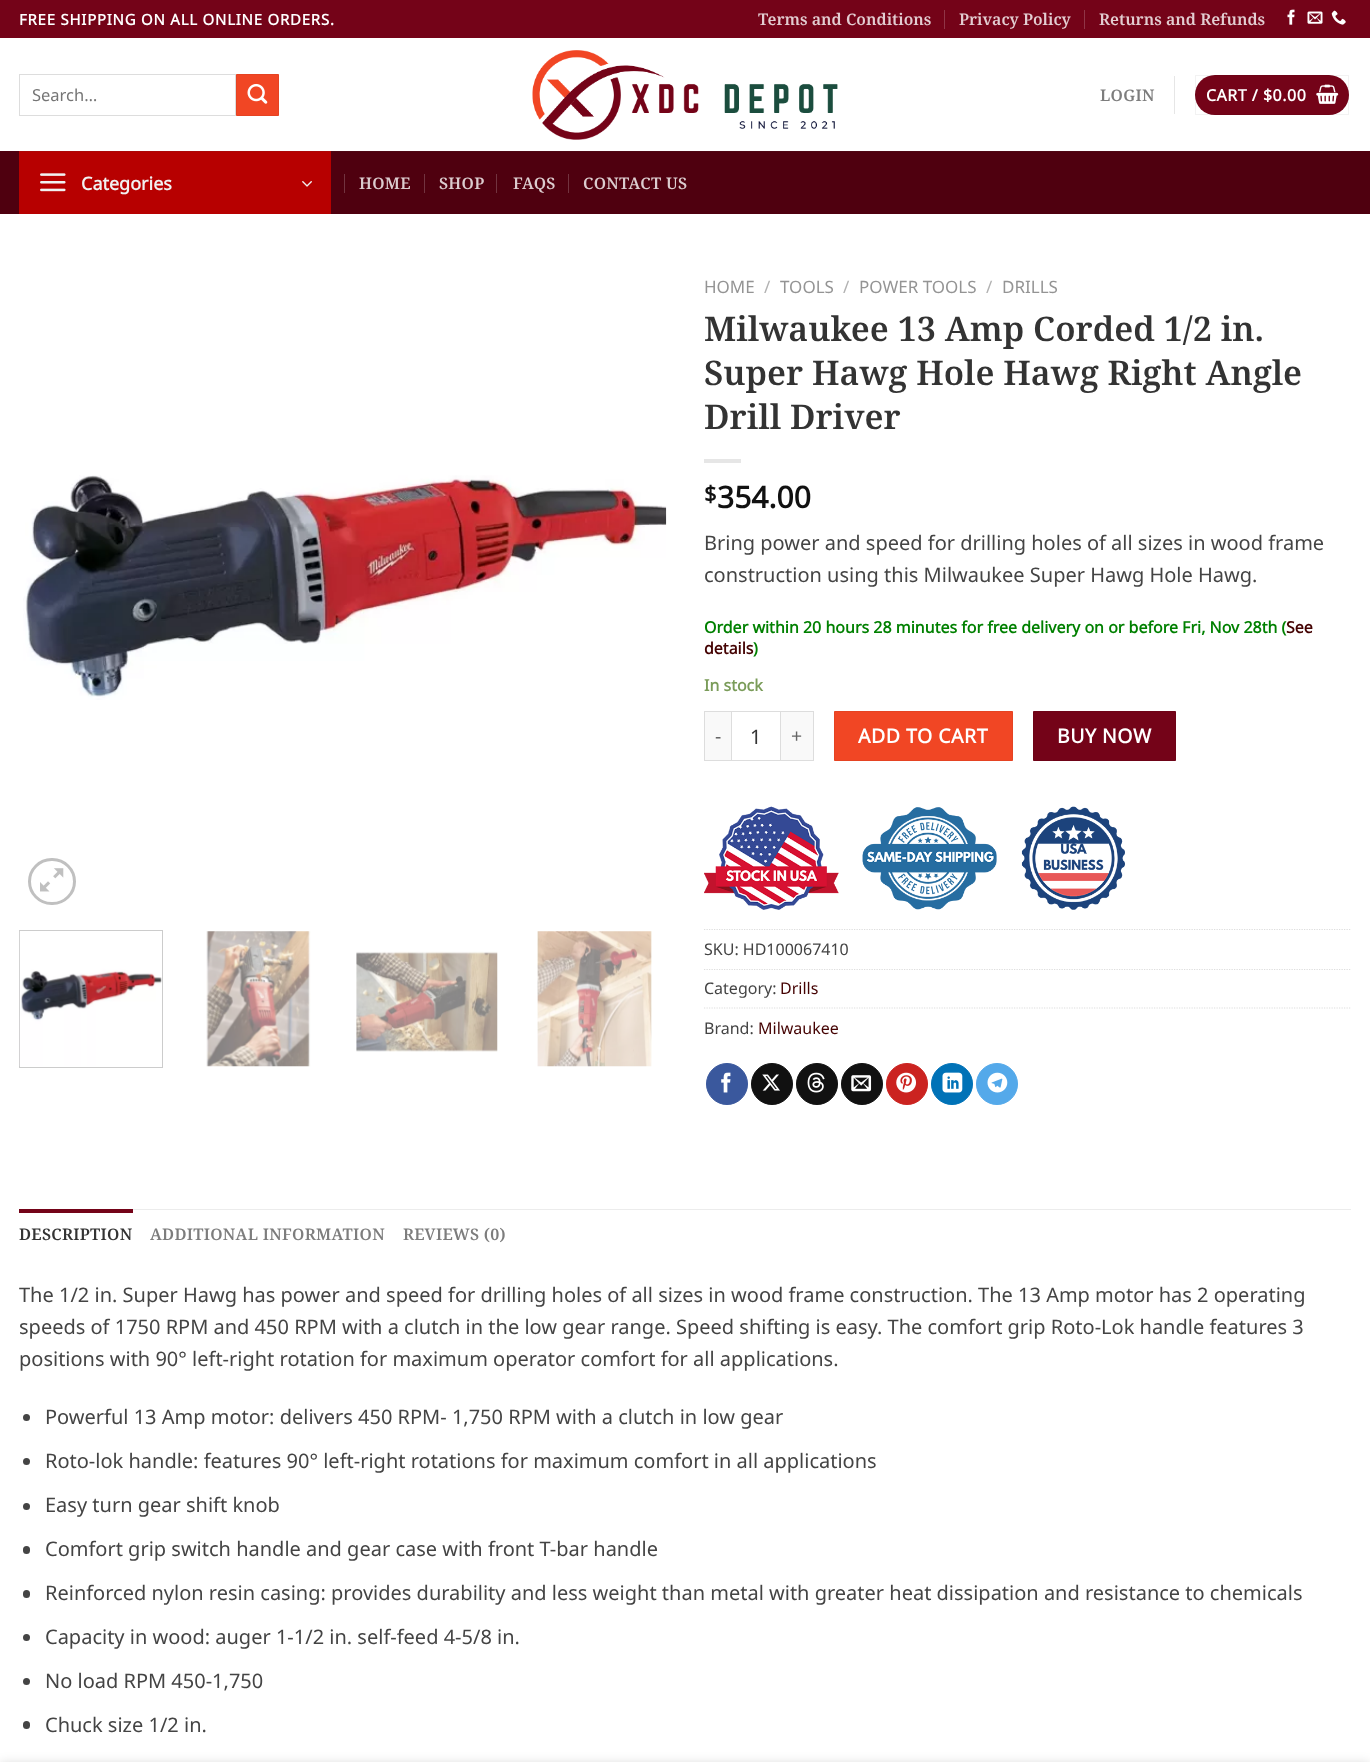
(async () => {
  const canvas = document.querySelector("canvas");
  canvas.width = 1370;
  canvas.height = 1762;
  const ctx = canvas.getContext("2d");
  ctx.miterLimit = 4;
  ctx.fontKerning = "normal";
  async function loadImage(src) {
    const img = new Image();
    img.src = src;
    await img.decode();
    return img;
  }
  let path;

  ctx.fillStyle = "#ffffff";
  ctx.fillRect(0, 0, 1370, 1762);
  for (const [x, y, w, h, color] of [
    [0, 0, 1370, 38, "#740318"],
    [944, 10, 1, 19, "#903546"],
    [1084, 10, 1, 19, "#903546"],
  ]) {
    ctx.fillStyle = color;
    ctx.fillRect(x, y, w, h);
  }
  ctx.drawImage(await loadImage("img/1.png"), 1287, 9, 8, 16);
  ctx.drawImage(await loadImage("img/2.png"), 1307, 11, 16, 13);
  ctx.drawImage(await loadImage("img/3.png"), 1331, 10, 15, 15);
  ctx.strokeStyle = "#dddddd";
  ctx.strokeRect(19.5, 74.5, 216, 41);
  ctx.fillStyle = "#f14624";
  ctx.beginPath();
  ctx.rect(236.5, 74.5, 42, 41);
  ctx.fill();
  ctx.strokeStyle = "#e54322";
  ctx.stroke();
  ctx.drawImage(await loadImage("img/4.png"), 247, 83, 21, 21);
  ctx.drawImage(await loadImage("img/5.png"), 532, 50, 306, 90);
  ctx.fillStyle = "#e6e6e6";
  ctx.fillRect(1174, 76, 1, 38);
  ctx.fillStyle = "#740318";
  ctx.beginPath();
  ctx.roundRect(1195, 75, 154, 40, 20);
  ctx.fill();
  ctx.strokeStyle = "rgba(0, 0, 0, 0.05)";
  ctx.strokeRect(1195.5, 75.5, 153, 39);
  ctx.drawImage(await loadImage("img/6.png"), 1316, 84, 23, 20);
  for (const [x, y, w, h, color] of [
    [0, 151, 1370, 63, "#4f000f"],
    [331, 151, 1020, 1, "#4e0714"],
    [19, 152, 312, 62, "#b70000"],
    [19, 151, 312, 1, "#ac0707"],
  ]) {
    ctx.fillStyle = color;
    ctx.fillRect(x, y, w, h);
  }
  ctx.drawImage(await loadImage("img/7.png"), 40, 173, 26, 19);
  ctx.drawImage(await loadImage("img/8.png"), 302, 181, 10, 6);
  for (const [x, y, w, h, color] of [
    [344, 174, 1, 19, "#72333f"],
    [424, 174, 1, 19, "#72333f"],
    [496, 174, 1, 19, "#72333f"],
    [568, 174, 1, 19, "#72333f"],
  ]) {
    ctx.fillStyle = color;
    ctx.fillRect(x, y, w, h);
  }
  ctx.drawImage(await loadImage("img/9.png"), 23, 475, 644, 225);
  ctx.beginPath();
  ctx.roundRect(29.5, 859.5, 45, 44, 22);
  ctx.strokeStyle = "#c0c0c0";
  ctx.lineWidth = 3;
  ctx.stroke();
  ctx.drawImage(await loadImage("img/10.png"), 40, 868, 24, 24);
  ctx.strokeStyle = "#cccccc";
  ctx.lineWidth = 1;
  ctx.strokeRect(19.5, 930.5, 143, 137);
  ctx.drawImage(await loadImage("img/11.png"), 19, 931, 143, 135);
  ctx.drawImage(await loadImage("img/12.png"), 206, 931, 105, 136);
  ctx.drawImage(await loadImage("img/13.png"), 356, 951, 142, 101);
  ctx.drawImage(await loadImage("img/14.png"), 537, 931, 115, 136);
  for (const [x, y, w, h, color] of [
    [704, 459, 37, 4, "#e6e6e6"],
    [705, 712, 26, 48, "#f9f9f9"],
    [704, 711, 27, 1, "#dddddd"],
    [704, 760, 27, 1, "#dddddd"],
    [704, 711, 1, 50, "#dddddd"],
  ]) {
    ctx.fillStyle = color;
    ctx.fillRect(x, y, w, h);
  }
  ctx.strokeStyle = "#dddddd";
  ctx.strokeRect(731.5, 711.5, 49, 49);
  for (const [x, y, w, h, color] of [
    [781, 712, 32, 48, "#f9f9f9"],
    [781, 711, 33, 1, "#dddddd"],
    [813, 711, 1, 50, "#dddddd"],
    [781, 760, 33, 1, "#dddddd"],
  ]) {
    ctx.fillStyle = color;
    ctx.fillRect(x, y, w, h);
  }
  ctx.fillStyle = "#f14624";
  ctx.beginPath();
  ctx.rect(834.5, 711.5, 178, 49);
  ctx.fill();
  ctx.strokeStyle = "#e54322";
  ctx.stroke();
  ctx.fillStyle = "#740318";
  ctx.beginPath();
  ctx.rect(1033.5, 711.5, 142, 49);
  ctx.fill();
  ctx.strokeStyle = "#6e0317";
  ctx.stroke();
  ctx.drawImage(await loadImage("img/15.png"), 704, 806, 421, 104);
  path = new Path2D("M704 929.5H1351");
  ctx.strokeStyle = "#dddddd";
  ctx.lineWidth = 1.2;
  ctx.setLineDash([1.25, 1.25]);
  ctx.stroke(path);
  path = new Path2D("M704 969.5H1351");
  ctx.stroke(path);
  path = new Path2D("M704 1008H1351");
  ctx.stroke(path);
  ctx.fillStyle = "#3a589d";
  ctx.beginPath();
  ctx.arc(727, 1084, 20.5, 0, Math.PI * 2);
  ctx.fill();
  ctx.strokeStyle = "#3a589d";
  ctx.lineWidth = 1;
  ctx.setLineDash([]);
  ctx.stroke();
  ctx.drawImage(await loadImage("img/16.png"), 721, 1072, 10, 21);
  ctx.fillStyle = "#111111";
  ctx.beginPath();
  ctx.arc(772, 1084, 20.5, 0, Math.PI * 2);
  ctx.fill();
  ctx.strokeStyle = "#111111";
  ctx.stroke();
  ctx.drawImage(await loadImage("img/17.png"), 762, 1074, 18, 17);
  ctx.beginPath();
  ctx.arc(817, 1084, 20.5, 0, Math.PI * 2);
  ctx.fill();
  ctx.stroke();
  ctx.drawImage(await loadImage("img/18.png"), 807, 1072, 18, 21);
  ctx.beginPath();
  ctx.arc(862, 1084, 20.5, 0, Math.PI * 2);
  ctx.fill();
  ctx.stroke();
  ctx.drawImage(await loadImage("img/19.png"), 851, 1075, 21, 17);
  ctx.fillStyle = "#cb2320";
  ctx.beginPath();
  ctx.arc(907, 1084, 20.5, 0, Math.PI * 2);
  ctx.fill();
  ctx.strokeStyle = "#cb2320";
  ctx.stroke();
  ctx.drawImage(await loadImage("img/20.png"), 896, 1072, 20, 21);
  ctx.fillStyle = "#0072b7";
  ctx.beginPath();
  ctx.arc(952, 1084, 20.5, 0, Math.PI * 2);
  ctx.fill();
  ctx.strokeStyle = "#0072b7";
  ctx.stroke();
  ctx.drawImage(await loadImage("img/21.png"), 942, 1072, 21, 21);
  ctx.fillStyle = "#54a9ea";
  ctx.beginPath();
  ctx.arc(997, 1084, 20.5, 0, Math.PI * 2);
  ctx.fill();
  ctx.strokeStyle = "#54a9ea";
  ctx.stroke();
  ctx.drawImage(await loadImage("img/22.png"), 987, 1072, 21, 21);
  ctx.fillStyle = "#ececec";
  ctx.fillRect(133, 1209, 1218, 1);
  ctx.fillStyle = "#740318";
  ctx.fillRect(19, 1209, 114, 4);
  ctx.fillStyle = "#444444";
  ctx.beginPath();
  ctx.arc(26.5, 1417.5, 3.5, 0, Math.PI * 2);
  ctx.fill();
  ctx.beginPath();
  ctx.arc(26.5, 1461.5, 3.5, 0, Math.PI * 2);
  ctx.fill();
  ctx.beginPath();
  ctx.arc(26.5, 1506.5, 3.5, 0, Math.PI * 2);
  ctx.fill();
  ctx.beginPath();
  ctx.roundRect(23, 1546, 7, 8, 3.5);
  ctx.fill();
  ctx.beginPath();
  ctx.roundRect(23, 1590, 7, 8, 3.5);
  ctx.fill();
  ctx.beginPath();
  ctx.arc(26.5, 1637.5, 3.5, 0, Math.PI * 2);
  ctx.fill();
  ctx.beginPath();
  ctx.arc(26.5, 1681.5, 3.5, 0, Math.PI * 2);
  ctx.fill();
  ctx.beginPath();
  ctx.roundRect(23, 1721, 7, 8, 3.5);
  ctx.fill();
  ctx.fillStyle = "rgba(0, 0, 0, 0.14)";
  ctx.filter = "blur(5.5px)";
  ctx.beginPath();
  ctx.rect(0, 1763, 1370, 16);
  ctx.fill();
  ctx.filter = "none";
  ctx.letterSpacing = "0.75px";
  ctx.font = "bold 15px Noto Sans";
  ctx.fillStyle = "#ffffff";
  ctx.fillText("FREE SHIPPING ON ALL ONLINE ORDERS.", 19, 25);
  ctx.letterSpacing = "0px";
  ctx.font = "600 16px Noto Serif";
  ctx.fillStyle = "#e3cdd1";
  for (const [text, x, y] of [
    ["Terms and Conditions", 758, 25],
    ["Privacy Policy", 959, 25],
    ["Returns and Refunds", 1099, 25],
  ]) {
    ctx.fillText(text, x, y);
  }
  ctx.font = "16.5px Noto Sans";
  ctx.fillStyle = "#757575";
  ctx.fillText("Search…", 32, 101);
  ctx.letterSpacing = "0.3px";
  ctx.font = "600 16px Noto Serif";
  ctx.fillStyle = "#7d7d7d";
  ctx.fillText("LOGIN", 1100, 101);
  ctx.letterSpacing = "0.5px";
  ctx.font = "bold 16px Noto Sans";
  ctx.fillStyle = "#ffffff";
  ctx.fillText("CART / $0.00", 1206, 101);
  ctx.letterSpacing = "0px";
  ctx.font = "bold 18px Noto Sans";
  ctx.fillStyle = "#f1f1f1";
  ctx.fillText("Categories", 81, 190);
  ctx.letterSpacing = "0.3px";
  ctx.font = "600 16px Noto Serif";
  ctx.fillStyle = "#dccccf";
  for (const [text, x, y] of [
    ["HOME", 359, 189],
    ["SHOP", 439, 189],
    ["FAQS", 513, 189],
    ["CONTACT US", 583, 189],
  ]) {
    ctx.fillText(text, x, y);
  }
  ctx.letterSpacing = "0px";
  ctx.font = "17px Noto Sans";
  ctx.fillStyle = "#949494";
  ctx.fillText("HOME", 704, 293);
  ctx.fillStyle = "#b2b2b2";
  ctx.fillText("/", 764, 293);
  ctx.fillStyle = "#949494";
  ctx.fillText("TOOLS", 780, 293);
  ctx.fillStyle = "#b2b2b2";
  ctx.fillText("/", 843, 293);
  ctx.fillStyle = "#949494";
  ctx.fillText("POWER TOOLS", 859, 293);
  ctx.fillStyle = "#b2b2b2";
  ctx.fillText("/", 986, 293);
  ctx.fillStyle = "#949494";
  ctx.fillText("DRILLS", 1002, 293);
  ctx.font = "600 34px Noto Serif";
  ctx.fillStyle = "#333333";
  for (const [text, x, y] of [
    ["Milwaukee 13 Amp Corded 1/2 in.", 704, 341],
    ["Super Hawg Hole Hawg Right Angle", 704, 385],
    ["Drill Driver", 704, 429],
  ]) {
    ctx.fillText(text, x, y);
  }
  ctx.font = "bold 22px Noto Sans";
  ctx.fillStyle = "#111111";
  ctx.fillText("$", 704, 502);
  ctx.font = "bold 30px Noto Sans";
  ctx.fillText("354.00", 717, 508);
  ctx.font = "20px Noto Sans";
  ctx.fillStyle = "#444444";
  ctx.fillText("Bring power and speed for drilling holes of all sizes in wood frame", 704, 550);
  ctx.fillText("construction using this Milwaukee Super Hawg Hole Hawg.", 704, 582);
  ctx.font = "bold 16px Noto Sans";
  ctx.fillStyle = "#008000";
  ctx.fillText("Order within 20 hours 28 minutes for free delivery on or before Fri, Nov 28th (", 704, 633);
  ctx.fillStyle = "#440202";
  ctx.fillText("See", 1286, 633);
  ctx.fillText("details", 704, 654);
  ctx.fillStyle = "#008000";
  ctx.fillText(")", 753, 654);
  ctx.fillStyle = "#7a9c59";
  ctx.fillText("In stock", 704, 691);
  ctx.letterSpacing = "0.5px";
  ctx.font = "19.5px Noto Sans";
  ctx.fillStyle = "#666666";
  ctx.fillText("-", 715, 743);
  ctx.letterSpacing = "0px";
  ctx.font = "20px Noto Sans";
  ctx.fillStyle = "#333333";
  ctx.fillText("1", 750, 744);
  ctx.letterSpacing = "0.5px";
  ctx.font = "19.5px Noto Sans";
  ctx.fillStyle = "#666666";
  ctx.fillText("+", 791, 743);
  ctx.font = "bold 19.5px Noto Sans";
  ctx.fillStyle = "#ffffff";
  ctx.fillText("ADD TO CART", 858, 743);
  ctx.fillText("BUY NOW", 1057, 743);
  ctx.letterSpacing = "0px";
  ctx.font = "16px Noto Sans";
  ctx.fillStyle = "#444444";
  ctx.fillText("SKU: HD100067410", 704, 955);
  ctx.fillText("Category:", 704, 994);
  ctx.fillStyle = "#440202";
  ctx.fillText("Drills", 780, 994);
  ctx.fillStyle = "#444444";
  ctx.fillText("Brand:", 704, 1034);
  ctx.fillStyle = "#440202";
  ctx.fillText("Milwaukee", 758, 1034);
  ctx.letterSpacing = "0.3px";
  ctx.font = "600 16px Noto Serif";
  ctx.fillStyle = "#333333";
  ctx.fillText("DESCRIPTION", 19, 1240);
  ctx.fillStyle = "#7d7d7d";
  ctx.fillText("ADDITIONAL INFORMATION", 150, 1240);
  ctx.fillText("REVIEWS (0)", 403, 1240);
  ctx.letterSpacing = "0px";
  ctx.font = "20px Noto Sans";
  ctx.fillStyle = "#444444";
  for (const [text, x, y] of [
    ["The 1/2 in. Super Hawg has power and speed for drilling holes of all sizes in wood frame construction. The 13 Amp motor has 2 operating", 19, 1302],
    ["speeds of 1750 RPM and 450 RPM with a clutch in the low gear range. Speed shifting is easy. The comfort grip Roto-Lok handle features 3", 19, 1334],
    ["positions with 90° left-right rotation for maximum operator comfort for all applications.", 19, 1366],
    ["Powerful 13 Amp motor: delivers 450 RPM- 1,750 RPM with a clutch in low gear", 45, 1424],
    ["Roto-lok handle: features 90° left-right rotations for maximum comfort in all applications", 45, 1468],
    ["Easy turn gear shift knob", 45, 1512],
    ["Comfort grip switch handle and gear case with front T-bar handle", 45, 1556],
    ["Reinforced nylon resin casing: provides durability and less weight than metal with greater heat dissipation and resistance to chemicals", 45, 1600],
    ["Capacity in wood: auger 1-1/2 in. self-feed 4-5/8 in.", 45, 1644],
    ["No load RPM 450-1,750", 45, 1688],
    ["Chuck size 1/2 in.", 45, 1732],
  ]) {
    ctx.fillText(text, x, y);
  }
})();
